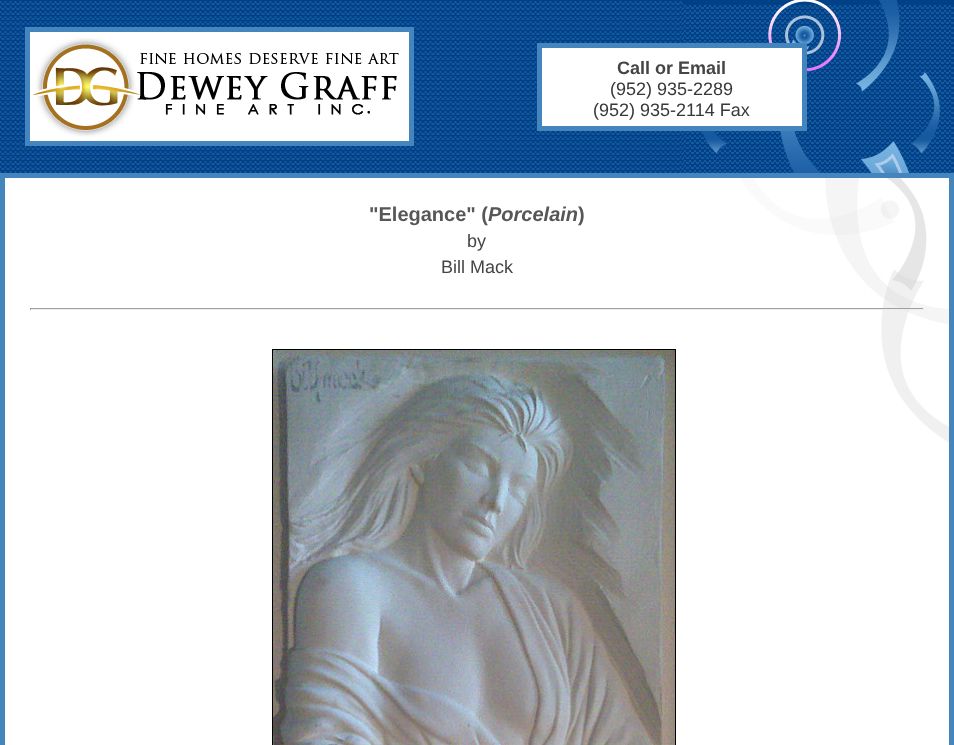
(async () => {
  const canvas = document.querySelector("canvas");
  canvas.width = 954;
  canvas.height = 745;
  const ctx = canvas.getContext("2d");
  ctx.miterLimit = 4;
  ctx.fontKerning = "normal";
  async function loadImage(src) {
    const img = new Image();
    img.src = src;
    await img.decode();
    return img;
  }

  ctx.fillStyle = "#004186";
  ctx.fillRect(0, 0, 954, 745);
  ctx.drawImage(await loadImage("img/1.png"), 0, 1, 683, 172);
  ctx.drawImage(await loadImage("img/2.png"), 683, 0, 271, 173);
  ctx.drawImage(await loadImage("img/3.png"), 25, 27, 389, 119);
  ctx.fillStyle = "#ffffff";
  ctx.beginPath();
  ctx.rect(539.5, 45.5, 265, 83);
  ctx.fill();
  ctx.strokeStyle = "#4585be";
  ctx.lineWidth = 5;
  ctx.stroke();
  ctx.fillRect(5, 178, 944, 567);
  ctx.drawImage(await loadImage("img/4.png"), 741, 178, 208, 265);
  ctx.strokeRect(2.5, 175.5, 949, 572);
  for (const [x, y, w, h, color] of [
    [30, 308, 894, 1, "#9f9f9f"],
    [923, 308, 1, 2, "#eeeeee"],
    [30, 309, 894, 1, "#eeeeee"],
    [30, 308, 1, 2, "#9f9f9f"],
  ]) {
    ctx.fillStyle = color;
    ctx.fillRect(x, y, w, h);
  }
  ctx.strokeStyle = "#000000";
  ctx.lineWidth = 1;
  ctx.strokeRect(272.5, 349.5, 403, 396);
  ctx.drawImage(await loadImage("img/5.png"), 273, 350, 402, 395);
  ctx.font = "bold 18px Liberation Sans";
  ctx.fillStyle = "#454545";
  ctx.fillText("Call or Email", 617, 74);
  ctx.font = "18px Liberation Sans";
  ctx.fillStyle = "#393838";
  ctx.fillText("(952) 935-2289", 610, 95);
  ctx.fillText("(952) 935-2114 Fax", 593, 116);
  ctx.font = "bold 20px Liberation Sans";
  ctx.fillStyle = "#575757";
  ctx.fillText("\"Elegance\" (", 369, 221);
  ctx.font = "italic bold 20px Liberation Sans";
  ctx.fillText("Porcelain", 488, 221);
  ctx.font = "bold 20px Liberation Sans";
  ctx.fillText(")", 578, 221);
  ctx.font = "18px Liberation Sans";
  ctx.fillStyle = "#454545";
  ctx.fillText("by", 467, 247);
  ctx.fillText("Bill Mack", 441, 273);
})();
